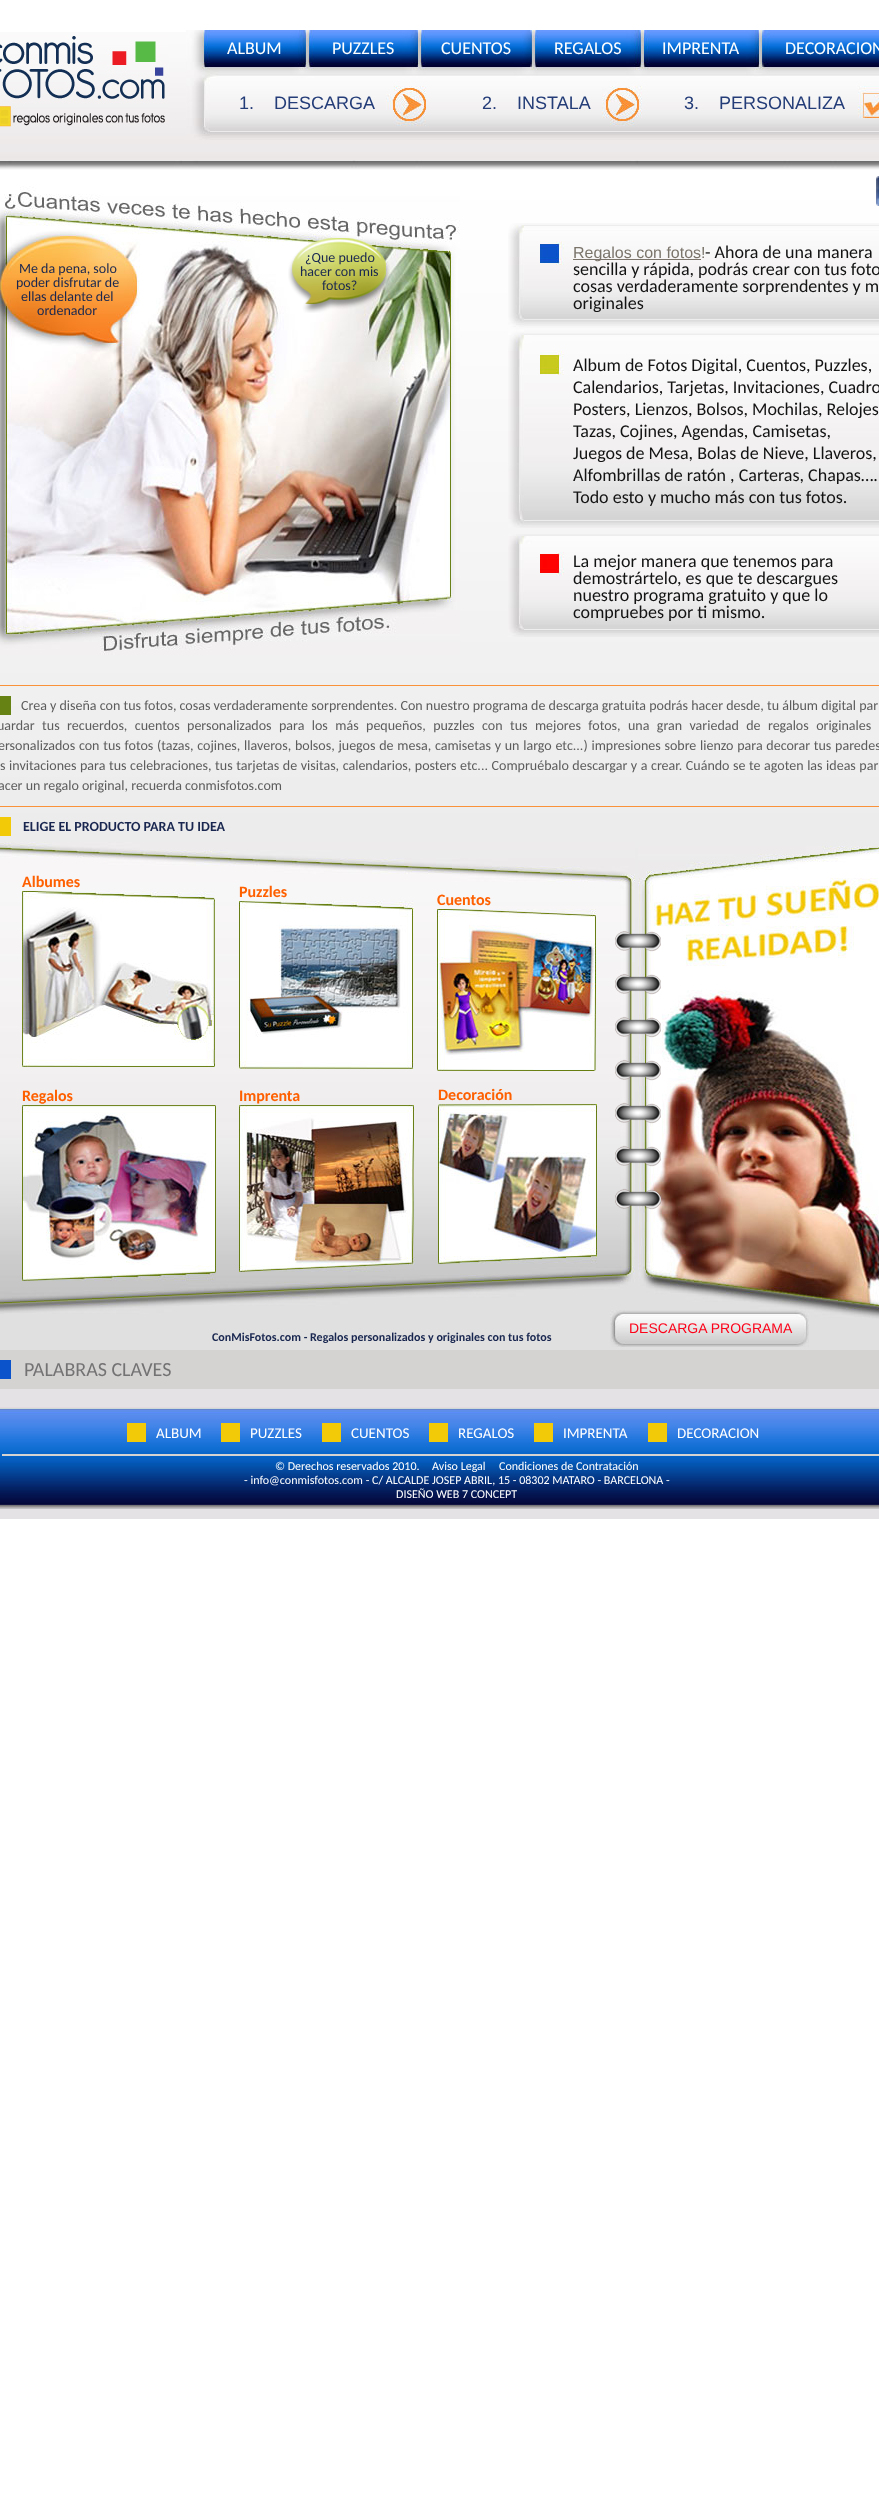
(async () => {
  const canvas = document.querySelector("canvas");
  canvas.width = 879;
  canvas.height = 2507;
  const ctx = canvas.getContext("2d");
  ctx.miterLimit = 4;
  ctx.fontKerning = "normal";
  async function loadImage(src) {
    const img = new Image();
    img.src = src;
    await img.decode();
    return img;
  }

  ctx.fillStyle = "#ffffff";
  ctx.fillRect(0, 0, 879, 2507);
  ctx.drawImage(await loadImage("img/1.png"), 0, 32, 879, 138);
  ctx.drawImage(await loadImage("img/2.png"), 0, 35, 169, 93);
  ctx.drawImage(await loadImage("img/3.png"), 186, 30, 693, 110);
  ctx.drawImage(await loadImage("img/5.png"), 0, 172, 879, 935);
  ctx.drawImage(await loadImage("img/4.png"), 876, 176, 3, 30);
  ctx.fillStyle = "#e0e0e0";
  ctx.fillRect(0, 1119, 879, 231);
  ctx.drawImage(await loadImage("img/6.png"), 0, 186, 460, 469);
  ctx.drawImage(await loadImage("img/7.png"), 288, 238, 102, 75);
  ctx.drawImage(await loadImage("img/8.png"), 508, 223, 371, 104);
  ctx.fillStyle = "#7a746b";
  ctx.fillRect(573, 259, 128, 1);
  ctx.drawImage(await loadImage("img/9.png"), 508, 327, 371, 201);
  ctx.drawImage(await loadImage("img/10.png"), 508, 534, 371, 103);
  for (const [x, y, w, h, color] of [
    [0, 685, 879, 1, "#f99238"],
    [0, 806, 879, 1, "#f99238"],
    [0, 696, 11, 19, "#678214"],
    [0, 817, 11, 19, "#f3ca08"],
  ]) {
    ctx.fillStyle = color;
    ctx.fillRect(x, y, w, h);
  }
  ctx.drawImage(await loadImage("img/11.png"), 0, 842, 635, 472);
  ctx.drawImage(await loadImage("img/12.png"), 22, 891, 193, 176);
  ctx.drawImage(await loadImage("img/13.png"), 239, 901, 175, 168);
  ctx.drawImage(await loadImage("img/14.png"), 437, 909, 159, 162);
  ctx.drawImage(await loadImage("img/15.png"), 22, 1105, 194, 176);
  ctx.drawImage(await loadImage("img/16.png"), 239, 1105, 176, 167);
  ctx.drawImage(await loadImage("img/17.png"), 438, 1104, 159, 160);
  ctx.drawImage(await loadImage("img/18.png"), 638, 846, 241, 473);
  ctx.drawImage(await loadImage("img/19.png"), 615, 931, 46, 279);
  ctx.drawImage(await loadImage("img/20.png"), 610, 1310, 199, 37);
  for (const [x, y, w, h, color] of [
    [0, 1350, 879, 39, "#d5d2d2"],
    [0, 1360, 11, 19, "#0b53ca"],
    [0, 1389, 879, 130, "#e4e2e5"],
  ]) {
    ctx.fillStyle = color;
    ctx.fillRect(x, y, w, h);
  }
  ctx.drawImage(await loadImage("img/21.png"), 0, 1407, 879, 102);
  for (const [x, y, w, h, color] of [
    [2, 1454, 877, 2, "#d5d2d2"],
    [127, 1423, 19, 19, "#f3ca08"],
    [221, 1423, 19, 19, "#f3ca08"],
    [322, 1423, 19, 19, "#f3ca08"],
    [429, 1423, 19, 19, "#f3ca08"],
    [534, 1423, 19, 19, "#f3ca08"],
    [648, 1423, 19, 19, "#f3ca08"],
  ]) {
    ctx.fillStyle = color;
    ctx.fillRect(x, y, w, h);
  }
  ctx.font = "18px Carlito";
  ctx.fillStyle = "#ffffff";
  for (const [text, x, y] of [
    ["ALBUM", 227, 54],
    ["PUZZLES", 332, 54],
    ["CUENTOS", 441, 54],
    ["REGALOS", 554, 54],
    ["IMPRENTA", 662, 54],
    ["DECORACION", 785, 54],
  ]) {
    ctx.fillText(text, x, y);
  }
  ctx.font = "18px Liberation Sans";
  ctx.fillStyle = "#243d78";
  for (const [text, x, y] of [
    ["1.    DESCARGA", 239, 109],
    ["2.    INSTALA", 482, 109],
    ["3.    PERSONALIZA", 684, 109],
  ]) {
    ctx.fillText(text, x, y);
  }
  ctx.font = "14px Carlito";
  ctx.fillStyle = "#192750";
  for (const [text, x, y] of [
    ["Me da pena, solo", 19, 273],
    ["poder disfrutar de", 16, 287],
    ["ellas delante del", 21, 301],
    ["ordenador", 37, 315],
    ["¿Que puedo", 305, 262],
    ["hacer con mis", 300, 276],
    ["fotos?", 322, 290],
  ]) {
    ctx.fillText(text, x, y);
  }
  ctx.font = "16px Liberation Sans";
  ctx.fillStyle = "#7a746b";
  ctx.fillText("Regalos con fotos!", 573, 258);
  ctx.font = "18px Carlito";
  ctx.fillStyle = "#131313";
  for (const [text, x, y] of [
    ["- Ahora de una manera", 705, 258],
    ["sencilla y rápida, podrás crear con tus foto", 573, 275],
    ["cosas verdaderamente sorprendentes y m", 573, 292],
    ["originales", 573, 309],
    ["Album de Fotos Digital, Cuentos, Puzzles,", 573, 371],
    ["Calendarios, Tarjetas, Invitaciones, Cuadro", 573, 393],
    ["Posters, Lienzos, Bolsos, Mochilas, Relojes", 573, 415],
    ["Tazas, Cojines, Agendas, Camisetas,", 573, 437],
    ["Juegos de Mesa, Bolas de Nieve, Llaveros,", 573, 459],
    ["Alfombrillas de ratón , Carteras, Chapas….", 573, 481],
    ["Todo esto y mucho más con tus fotos.", 573, 503],
    ["La mejor manera que tenemos para", 573, 567],
    ["demostrártelo, es que te descargues", 573, 584],
    ["nuestro programa gratuito y que lo", 573, 601],
    ["compruebes por ti mismo.", 573, 618],
  ]) {
    ctx.fillText(text, x, y);
  }
  ctx.font = "14px Carlito";
  ctx.fillStyle = "#5c5c5c";
  ctx.fillText("Crea y diseña con tus fotos, cosas verdaderamente sorprendentes. Con nuestro programa de descarga gratuita podrás hacer desde, tu álbum digital par", 21, 710);
  ctx.wordSpacing = "4.25px";
  ctx.fillText("uardar tus recuerdos, cuentos personalizados para los más pequeños, puzzles con tus mejores fotos, una gran variedad de regalos originales", -3, 730);
  ctx.wordSpacing = "0.6px";
  ctx.fillText("ersonalizados con tus fotos (tazas, cojines, llaveros, bolsos, juegos de mesa, camisetas y un largo etc...) impresiones sobre lienzo para decorar tus paredes", -2, 750);
  ctx.wordSpacing = "0.4px";
  ctx.fillText("s invitaciones para tus celebraciones, tus tarjetas de visitas, calendarios, posters etc... Compruébalo descargar y a crear. Cuándo se te agoten las ideas par", 0, 770);
  ctx.wordSpacing = "0px";
  ctx.fillText("acer un regalo original, recuerda conmisfotos.com", -2, 790);
  ctx.font = "bold 14px Carlito";
  ctx.fillStyle = "#192750";
  ctx.fillText("ELIGE EL PRODUCTO PARA TU IDEA", 23, 831);
  ctx.font = "bold 16px Carlito";
  ctx.fillStyle = "#fe6000";
  for (const [text, x, y] of [
    ["Albumes", 22, 887],
    ["Puzzles", 239, 897],
    ["Cuentos", 437, 905],
    ["Regalos", 22, 1101],
    ["Imprenta", 239, 1101],
    ["Decoración", 438, 1100],
  ]) {
    ctx.fillText(text, x, y);
  }
  ctx.font = "14px Liberation Sans";
  ctx.fillStyle = "#fc031a";
  ctx.fillText("DESCARGA PROGRAMA", 629, 1333);
  ctx.font = "bold 12px Carlito";
  ctx.fillStyle = "#192750";
  ctx.fillText("ConMisFotos.com - Regalos personalizados y originales con tus fotos", 212, 1341);
  ctx.font = "20px Carlito";
  ctx.fillStyle = "#747373";
  ctx.fillText("PALABRAS CLAVES", 24, 1376);
  ctx.font = "15px Carlito";
  ctx.fillStyle = "#ffffff";
  for (const [text, x, y] of [
    ["ALBUM", 156, 1438],
    ["PUZZLES", 250, 1438],
    ["CUENTOS", 351, 1438],
    ["REGALOS", 458, 1438],
    ["IMPRENTA", 563, 1438],
    ["DECORACION", 677, 1438],
  ]) {
    ctx.fillText(text, x, y);
  }
  ctx.font = "12px Carlito";
  for (const [text, x, y] of [
    ["© Derechos reservados 2010.", 275, 1470],
    ["Aviso Legal", 432, 1470],
    ["Condiciones de Contratación", 499, 1470],
    ["- info@conmisfotos.com - C/ ALCALDE JOSEP ABRIL, 15 - 08302 MATARO - BARCELONA -", 244, 1484],
    ["DISEÑO WEB 7 CONCEPT", 396, 1498],
  ]) {
    ctx.fillText(text, x, y);
  }
})();
